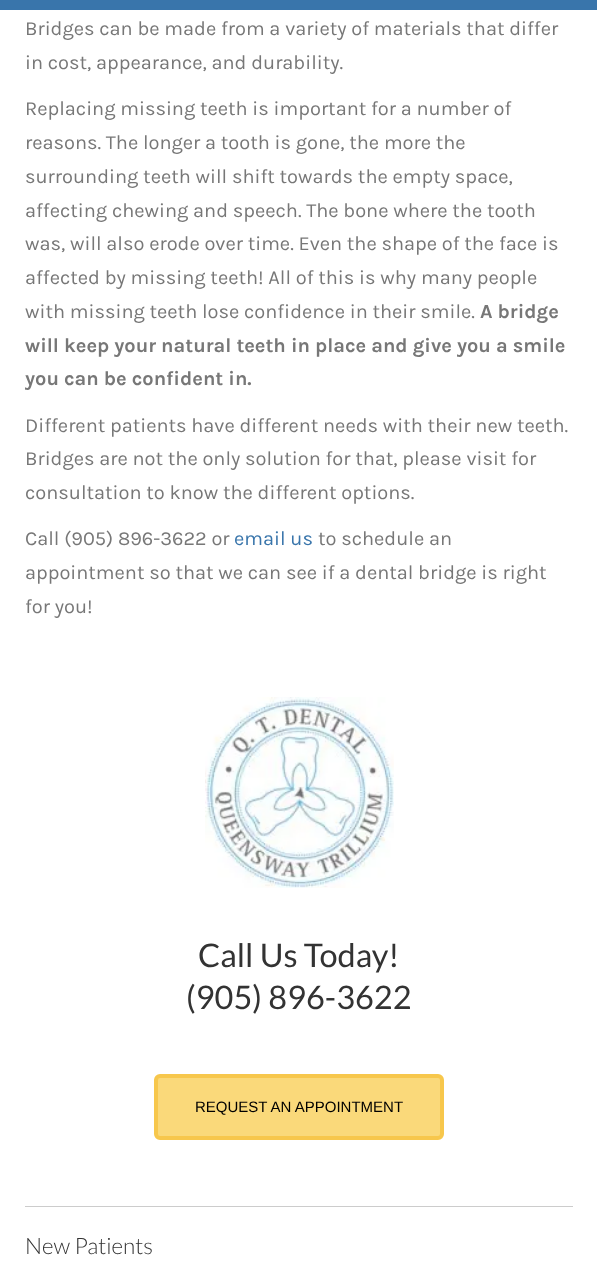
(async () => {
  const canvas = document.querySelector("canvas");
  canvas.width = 597;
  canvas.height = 1285;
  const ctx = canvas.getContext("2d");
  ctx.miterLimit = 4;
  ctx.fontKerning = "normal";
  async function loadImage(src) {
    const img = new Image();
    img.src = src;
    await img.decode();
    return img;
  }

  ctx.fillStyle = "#ffffff";
  ctx.fillRect(0, 0, 597, 1285);
  ctx.fillStyle = "#3975ab";
  ctx.fillRect(0, 0, 597, 10);
  ctx.drawImage(await loadImage("img/1.png"), 205, 697, 189, 191);
  ctx.fillStyle = "#fad97a";
  ctx.beginPath();
  ctx.roundRect(156, 1076, 286, 62, 4);
  ctx.fill();
  ctx.strokeStyle = "#f7c74c";
  ctx.lineWidth = 4;
  ctx.stroke();
  ctx.fillStyle = "#cccccc";
  ctx.fillRect(25, 1206, 548, 1);
  ctx.font = "20px Karla";
  ctx.fillStyle = "#777777";
  for (const [text, x, y] of [
    ["Bridges can be made from a variety of materials that differ", 25, 35],
    ["in cost, appearance, and durability.", 25, 69],
    ["Replacing missing teeth is important for a number of", 25, 115],
    ["reasons. The longer a tooth is gone, the more the", 25, 149],
    ["surrounding teeth will shift towards the empty space,", 25, 183],
    ["affecting chewing and speech. The bone where the tooth", 25, 217],
    ["was, will also erode over time. Even the shape of the face is", 25, 250],
    ["affected by missing teeth! All of this is why many people", 25, 284],
    ["with missing teeth lose confidence in their smile.", 25, 318],
  ]) {
    ctx.fillText(text, x, y);
  }
  ctx.font = "bold 20px Karla";
  for (const [text, x, y] of [
    ["A bridge", 480, 318],
    ["will keep your natural teeth in place and give you a smile", 25, 352],
    ["you can be confident in.", 25, 385],
  ]) {
    ctx.fillText(text, x, y);
  }
  ctx.font = "20px Karla";
  for (const [text, x, y] of [
    ["Different patients have different needs with their new teeth.", 25, 432],
    ["Bridges are not the only solution for that, please visit for", 25, 465],
    ["consultation to know the different options.", 25, 499],
    ["Call (905) 896-3622 or", 25, 545],
  ]) {
    ctx.fillText(text, x, y);
  }
  ctx.fillStyle = "#3975ab";
  ctx.fillText("email us", 234, 545);
  ctx.fillStyle = "#777777";
  for (const [text, x, y] of [
    ["to schedule an", 318, 545],
    ["appointment so that we can see if a dental bridge is right", 25, 579],
    ["for you!", 25, 613],
  ]) {
    ctx.fillText(text, x, y);
  }
  ctx.font = "32.5px Lato";
  ctx.fillStyle = "#333333";
  ctx.fillText("Call Us Today!", 198, 967);
  ctx.fillText("(905) 896-3622", 186, 1009);
  ctx.font = "15px Liberation Sans";
  ctx.fillStyle = "#000000";
  ctx.fillText("REQUEST AN APPOINTMENT", 195, 1112);
  ctx.font = "300 22.5px Lato";
  ctx.fillStyle = "#333333";
  ctx.fillText("New Patients", 25, 1254);
})();
